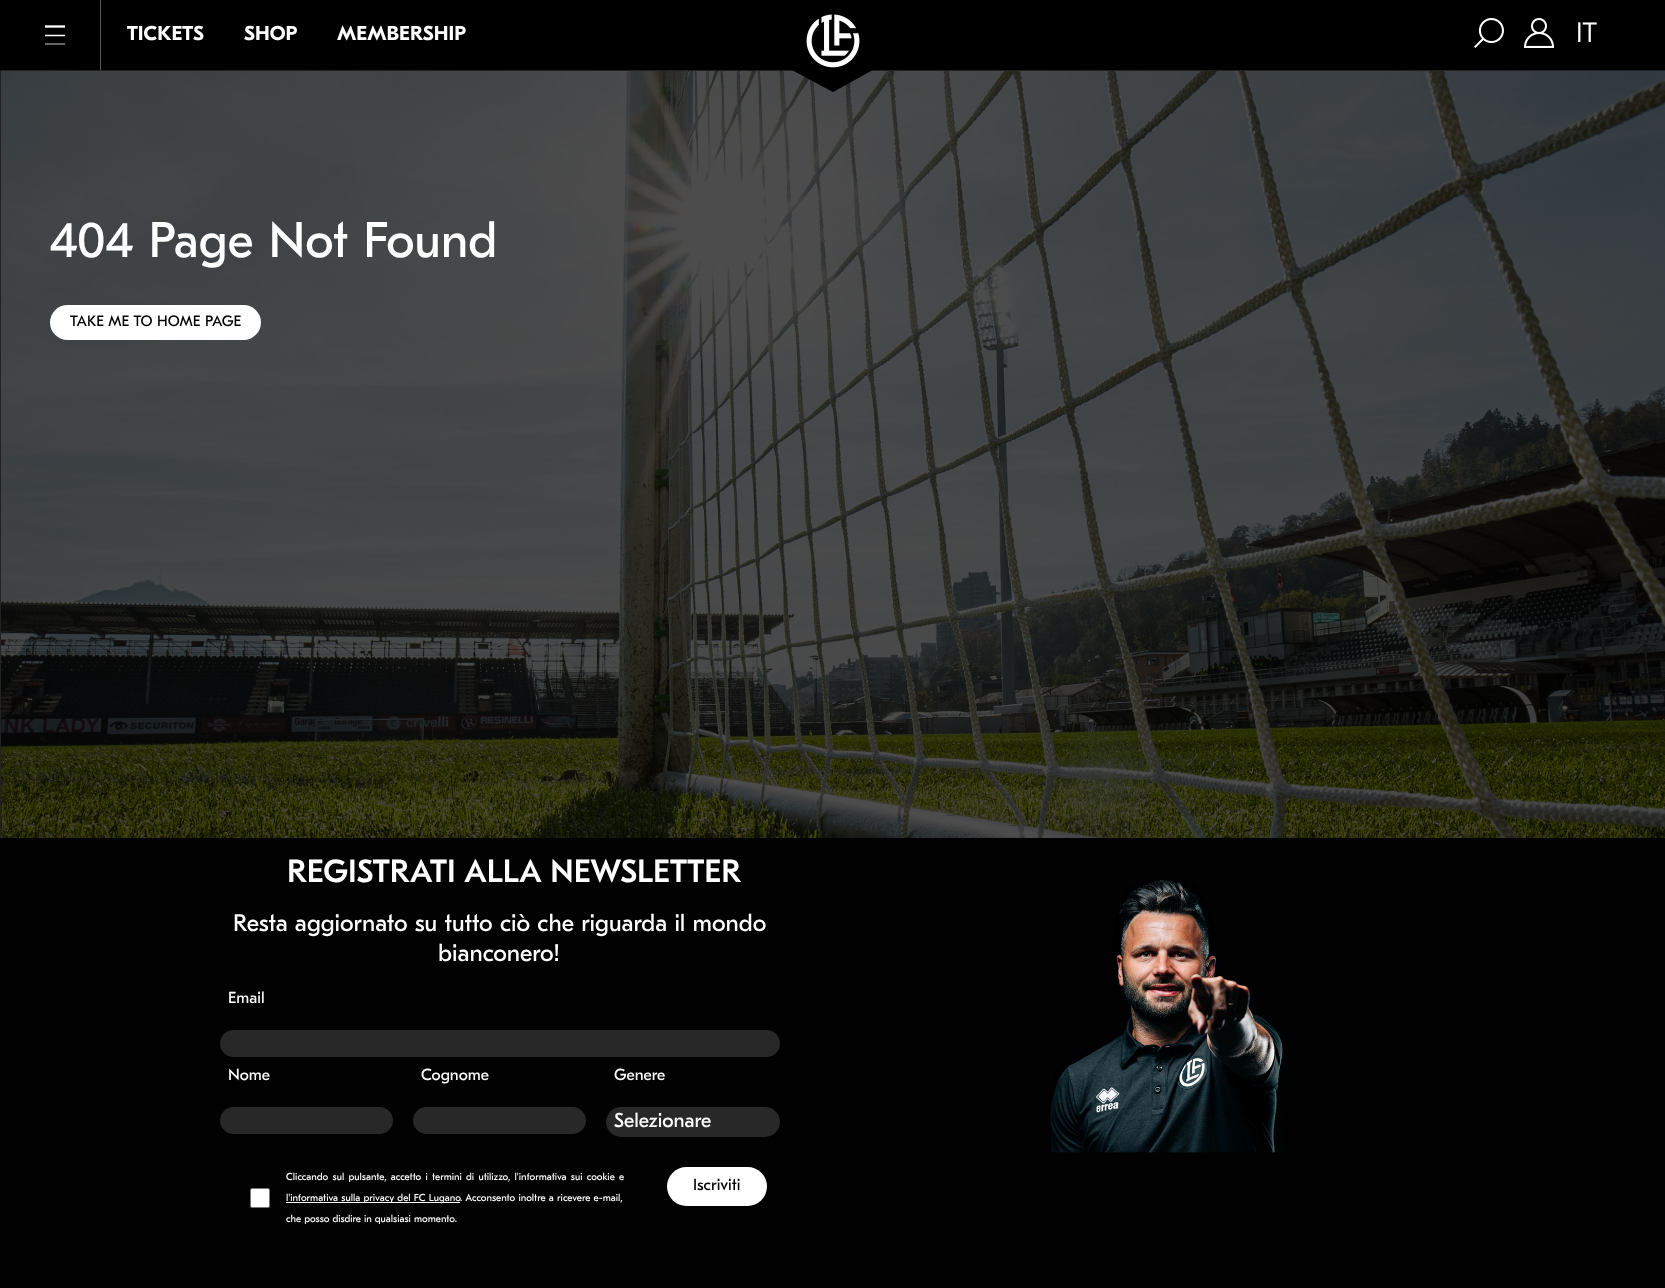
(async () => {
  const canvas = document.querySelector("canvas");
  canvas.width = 1665;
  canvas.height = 1288;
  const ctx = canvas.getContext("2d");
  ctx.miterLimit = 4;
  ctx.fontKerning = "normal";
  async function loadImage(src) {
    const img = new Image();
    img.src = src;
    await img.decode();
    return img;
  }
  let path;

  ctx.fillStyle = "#ffffff";
  ctx.fillRect(0, 0, 1665, 1288);
  ctx.fillStyle = "#000000";
  ctx.fillRect(0, 0, 1665, 70);
  ctx.fillStyle = "#555555";
  ctx.fillRect(100, 0, 1, 70);
  path = new Path2D("M45 26.5H65");
  ctx.strokeStyle = "#ffffff";
  ctx.lineWidth = 2.3;
  ctx.stroke(path);
  path = new Path2D("M45 35.5H65");
  ctx.lineWidth = 1.5;
  ctx.stroke(path);
  path = new Path2D("M45 44H65");
  ctx.lineWidth = 0.8;
  ctx.stroke(path);
  ctx.drawImage(await loadImage("img/4.png"), 0, 70, 1665, 768);
  ctx.drawImage(await loadImage("img/1.png"), 792, 14, 81, 78);
  ctx.drawImage(await loadImage("img/2.png"), 1474, 18, 30, 30);
  ctx.drawImage(await loadImage("img/3.png"), 1524, 18, 30, 30);
  ctx.fillStyle = "#ffffff";
  ctx.beginPath();
  ctx.roundRect(50, 305, 211, 35, 17.5);
  ctx.fill();
  ctx.fillStyle = "#020202";
  ctx.fillRect(0, 838, 1665, 450);
  ctx.fillStyle = "#282828";
  ctx.beginPath();
  ctx.roundRect(220, 1030, 560, 27, 13.5);
  ctx.fill();
  ctx.beginPath();
  ctx.roundRect(220, 1107, 173, 27, 13.5);
  ctx.fill();
  ctx.beginPath();
  ctx.roundRect(413, 1107, 173, 27, 13.5);
  ctx.fill();
  ctx.beginPath();
  ctx.roundRect(606, 1107, 174, 30, 15);
  ctx.fill();
  ctx.fillStyle = "#ffffff";
  ctx.beginPath();
  ctx.roundRect(250.5, 1188.5, 19, 19, 1.5);
  ctx.fill();
  ctx.strokeStyle = "#767676";
  ctx.lineWidth = 1;
  ctx.stroke();
  ctx.fillRect(286, 1202, 174, 1);
  ctx.beginPath();
  ctx.roundRect(667, 1167, 100, 39, 19.5);
  ctx.fill();
  ctx.drawImage(await loadImage("img/5.png"), 1049, 880, 235, 273);
  ctx.font = "bold 20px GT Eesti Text";
  for (const [text, x, y] of [
    ["TICKETS", 127, 40],
    ["SHOP", 244, 40],
    ["MEMBERSHIP", 337, 40],
  ]) {
    ctx.fillText(text, x, y);
  }
  ctx.font = "300 28px GT Eesti Text";
  ctx.fillText("IT", 1576, 42);
  ctx.font = "50px GT Eesti Text";
  ctx.fillText("404 Page Not Found", 50, 257);
  ctx.font = "15px GT Eesti Text";
  ctx.fillStyle = "#000000";
  ctx.fillText("TAKE ME TO HOME PAGE", 70, 326);
  ctx.font = "500 32px GT Eesti Text";
  ctx.fillStyle = "#ffffff";
  ctx.fillText("REGISTRATI ALLA NEWSLETTER", 287, 882);
  ctx.font = "24px GT Eesti Text";
  ctx.fillText("Resta aggiornato su tutto ciò che riguarda il mondo", 233, 931);
  ctx.fillText("bianconero!", 438, 961);
  ctx.font = "16px GT Eesti Text";
  for (const [text, x, y] of [
    ["Email", 228, 1003],
    ["Nome", 228, 1080],
    ["Cognome", 421, 1080],
    ["Genere", 614, 1080],
  ]) {
    ctx.fillText(text, x, y);
  }
  ctx.font = "20px GT Eesti Text";
  ctx.fillText("Selezionare", 614, 1127);
  ctx.wordSpacing = "1.25px";
  ctx.font = "10px GT Eesti Text";
  ctx.fillText("Cliccando sul pulsante, accetto i termini di utilizzo, l'informativa sui cookie e", 286, 1180);
  ctx.wordSpacing = "0.25px";
  ctx.fillText("l'informativa sulla privacy del FC Lugano", 286, 1201);
  ctx.fillText(". Acconsento inoltre a ricevere e-mail,", 460, 1201);
  ctx.wordSpacing = "0px";
  ctx.fillText("che posso disdire in qualsiasi momento.", 286, 1222);
  ctx.font = "16px GT Eesti Text";
  ctx.fillStyle = "#000000";
  ctx.fillText("Iscriviti", 693, 1190);
})();
